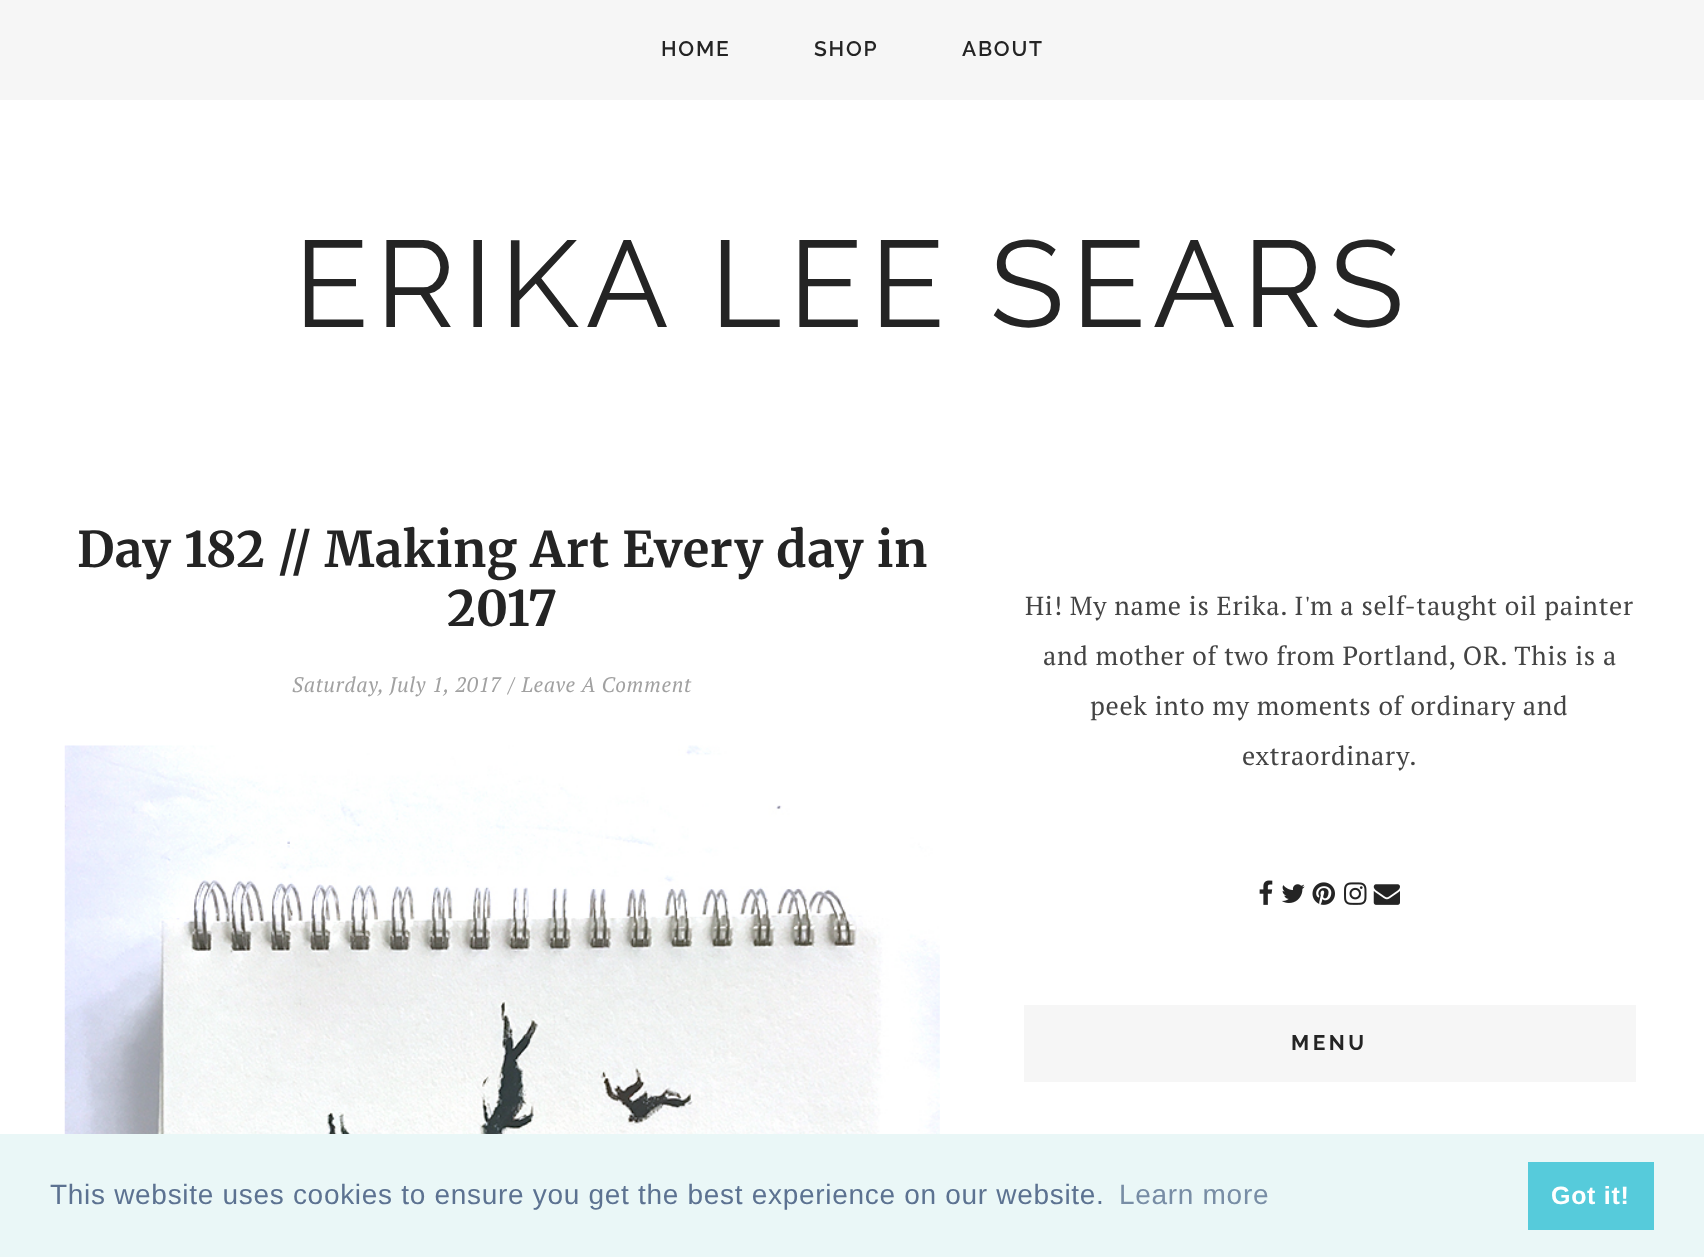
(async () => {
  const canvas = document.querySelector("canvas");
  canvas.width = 1704;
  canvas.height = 1257;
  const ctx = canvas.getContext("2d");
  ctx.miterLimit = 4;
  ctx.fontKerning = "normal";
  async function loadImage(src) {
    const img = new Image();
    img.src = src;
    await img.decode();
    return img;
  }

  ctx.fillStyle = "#ffffff";
  ctx.fillRect(0, 0, 1704, 1257);
  ctx.fillStyle = "#f6f6f6";
  ctx.fillRect(0, 0, 1704, 100);
  ctx.drawImage(await loadImage("img/1.png"), 64, 745, 876, 389);
  ctx.drawImage(await loadImage("img/2.png"), 1259, 880, 14, 25);
  ctx.drawImage(await loadImage("img/3.png"), 1281, 884, 24, 19);
  ctx.drawImage(await loadImage("img/4.png"), 1312, 882, 23, 23);
  ctx.drawImage(await loadImage("img/5.png"), 1344, 882, 23, 23);
  ctx.drawImage(await loadImage("img/6.png"), 1373, 884, 27, 21);
  for (const [x, y, w, h, color] of [
    [1024, 1005, 612, 77, "#f6f6f6"],
    [0, 1134, 1704, 123, "#eaf7f7"],
    [1528, 1162, 126, 68, "#56cbdb"],
  ]) {
    ctx.fillStyle = color;
    ctx.fillRect(x, y, w, h);
  }
  ctx.letterSpacing = "1.75px";
  ctx.font = "600 21px Raleway";
  ctx.fillStyle = "#242424";
  for (const [text, x, y] of [
    ["HOME", 661, 56],
    ["SHOP", 814, 56],
    ["ABOUT", 962, 56],
  ]) {
    ctx.fillText(text, x, y);
  }
  ctx.letterSpacing = "7px";
  ctx.font = "122.5px Raleway";
  ctx.fillText("ERIKA LEE SEARS", 294, 327);
  ctx.letterSpacing = "0.7px";
  ctx.font = "bold 49px Merriweather";
  ctx.fillText("Day 182 // Making Art Every day in", 77, 567);
  ctx.fillText("2017", 447, 626);
  ctx.font = "italic 21px PT Serif";
  ctx.fillStyle = "#a1a1a1";
  ctx.fillText("Saturday, July 1, 2017 / Leave A Comment", 292, 692);
  ctx.font = "26.25px PT Serif";
  ctx.fillStyle = "#444444";
  for (const [text, x, y] of [
    ["Hi! My name is Erika. I'm a self-taught oil painter", 1025, 615],
    ["and mother of two from Portland, OR. This is a", 1043, 665],
    ["peek into my moments of ordinary and", 1090, 715],
    ["extraordinary.", 1242, 765],
  ]) {
    ctx.fillText(text, x, y);
  }
  ctx.letterSpacing = "3.5px";
  ctx.font = "bold 21px Raleway";
  ctx.fillStyle = "#242424";
  ctx.fillText("MENU", 1291, 1050);
  ctx.letterSpacing = "0.7px";
  ctx.font = "28px Liberation Sans";
  ctx.fillStyle = "#5c7291";
  ctx.fillText("This website uses cookies to ensure you get the best experience on our website.", 50, 1204);
  ctx.fillStyle = "#788da5";
  ctx.fillText("Learn more", 1119, 1204);
  ctx.font = "bold 25px Liberation Sans";
  ctx.fillStyle = "#ffffff";
  ctx.fillText("Got it!", 1551, 1204);
})();
